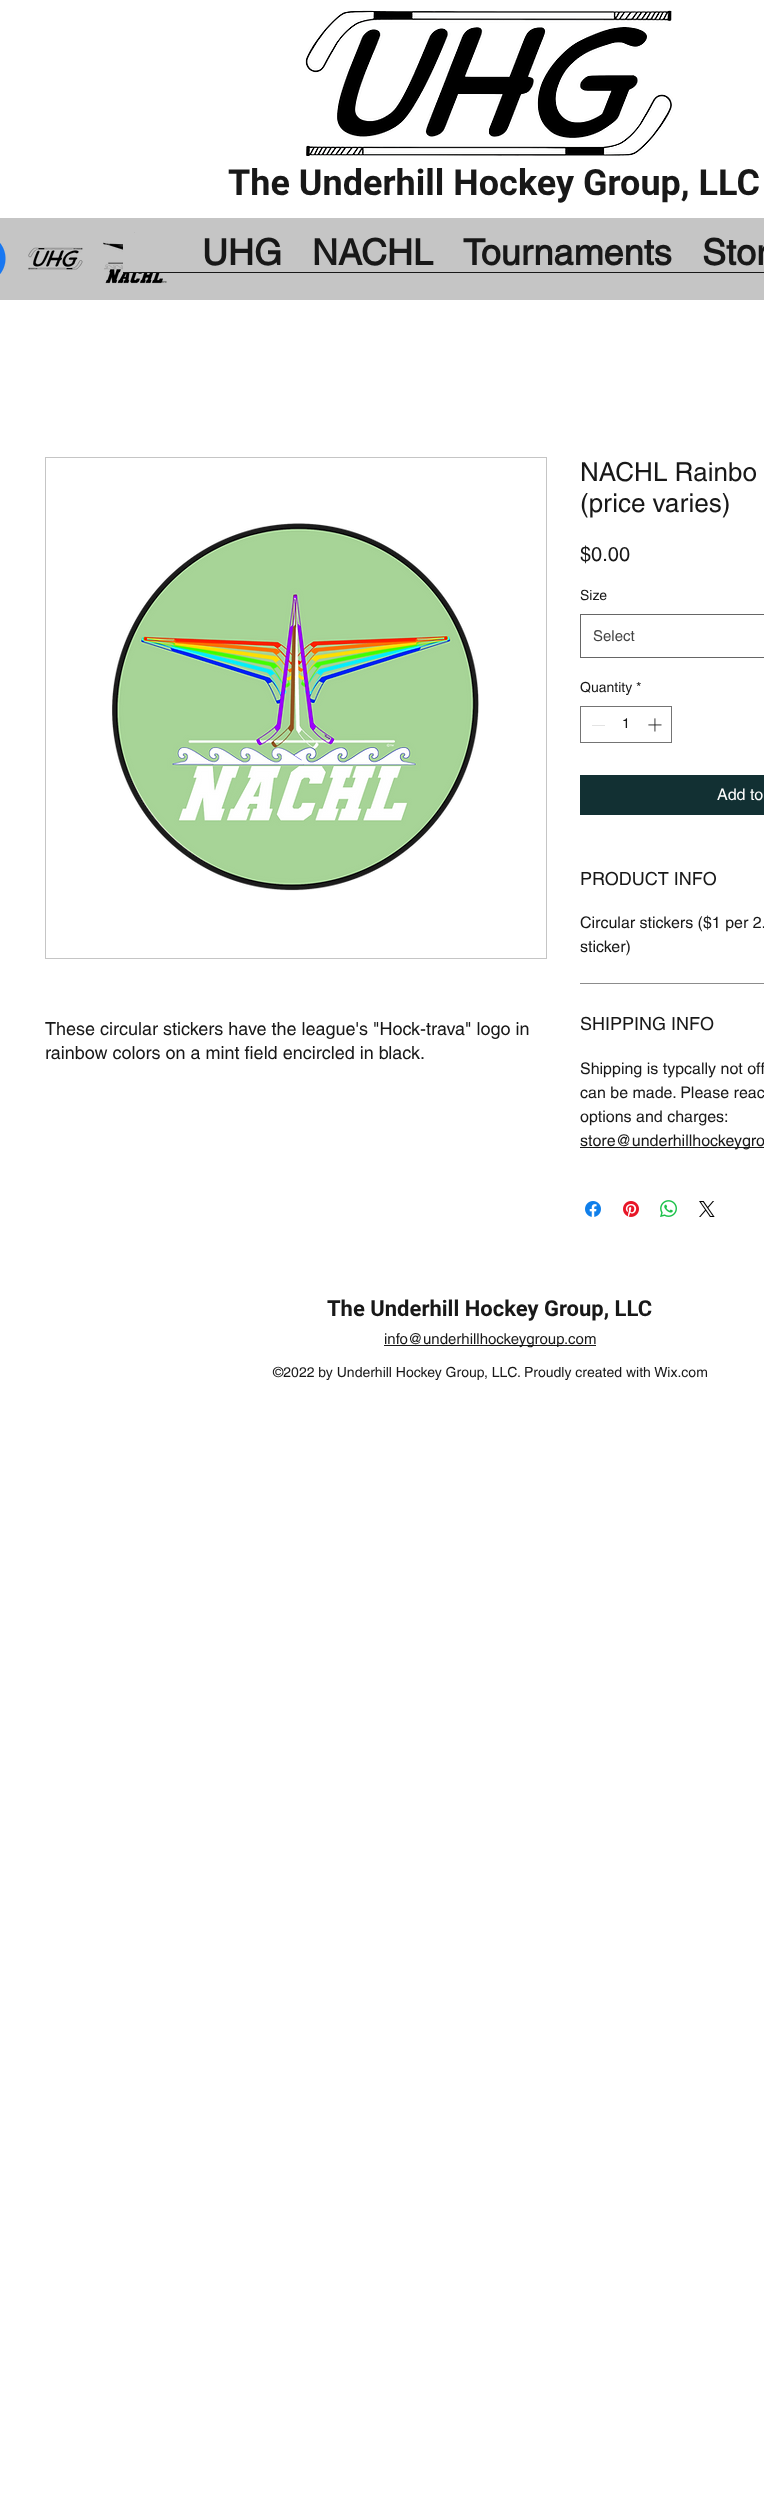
(async () => {
  const canvas = document.querySelector("canvas");
  canvas.width = 764;
  canvas.height = 2507;
  const ctx = canvas.getContext("2d");
  ctx.miterLimit = 4;
  ctx.fontKerning = "normal";
  async function loadImage(src) {
    const img = new Image();
    img.src = src;
    await img.decode();
    return img;
  }

  ctx.fillStyle = "#ffffff";
  ctx.fillRect(0, 0, 764, 2507);
  ctx.drawImage(await loadImage("img/1.png"), 305, 10, 368, 146);
  ctx.fillStyle = "#c5c5c5";
  ctx.fillRect(0, 218, 764, 82);
  ctx.drawImage(await loadImage("img/2.png"), 0, 243, 6, 31);
  ctx.drawImage(await loadImage("img/3.png"), 28, 247, 55, 23);
  ctx.drawImage(await loadImage("img/4.png"), 103, 232, 64, 52);
  ctx.fillRect(123, 233, 44, 39);
  ctx.fillStyle = "#181818";
  ctx.fillRect(123, 272, 641, 1);
  ctx.strokeStyle = "#c5c5c5";
  ctx.strokeRect(45.5, 457.5, 501, 501);
  ctx.drawImage(await loadImage("img/5.png"), 112, 523, 367, 368);
  ctx.strokeStyle = "#666666";
  ctx.strokeRect(580.5, 614.5, 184, 43);
  ctx.strokeStyle = "#747474";
  ctx.strokeRect(580.5, 706.5, 91, 36);
  ctx.fillStyle = "#e3e3e3";
  ctx.fillRect(592, 725, 13, 1);
  ctx.drawImage(await loadImage("img/6.png"), 648, 718, 14, 14);
  for (const [x, y, w, h, color] of [
    [580, 775, 184, 40, "#123033"],
    [580, 983, 184, 1, "#8c8c8c"],
    [580, 1147, 184, 1, "#181818"],
  ]) {
    ctx.fillStyle = color;
    ctx.fillRect(x, y, w, h);
  }
  ctx.drawImage(await loadImage("img/7.png"), 585, 1201, 16, 16);
  ctx.drawImage(await loadImage("img/8.png"), 623, 1201, 16, 16);
  ctx.drawImage(await loadImage("img/9.png"), 660, 1200, 17, 17);
  ctx.drawImage(await loadImage("img/10.png"), 699, 1201, 16, 16);
  ctx.fillRect(384, 1345, 212, 1);
  ctx.font = "bold 36px Roboto";
  ctx.fillText("The Underhill Hockey Group, LLC", 228, 195);
  ctx.font = "bold 36px helvetica";
  for (const [text, x, y] of [
    ["UHG", 202, 265],
    ["NACHL", 312, 265],
    ["Tournaments", 463, 265],
    ["Stor", 702, 265],
  ]) {
    ctx.fillText(text, x, y);
  }
  ctx.font = "18px helvetica";
  ctx.fillText("These circular stickers have the league's \"Hock-trava\" logo in", 45, 1035);
  ctx.fillText("rainbow colors on a mint field encircled in black.", 45, 1059);
  ctx.font = "26px helvetica";
  ctx.fillText("NACHL Rainbo", 580, 481);
  ctx.fillText("(price varies)", 580, 512);
  ctx.font = "20px helvetica";
  ctx.fillText("$0.00", 580, 561);
  ctx.font = "14px helvetica";
  ctx.fillText("Size", 580, 600);
  ctx.font = "15px helvetica";
  ctx.fillStyle = "#444444";
  ctx.fillText("Select", 593, 641);
  ctx.font = "14px helvetica";
  ctx.fillStyle = "#181818";
  ctx.fillText("Quantity *", 580, 692);
  ctx.fillText("1", 622, 728);
  ctx.font = "16px helvetica";
  ctx.fillStyle = "#ffffff";
  ctx.fillText("Add to", 717, 800);
  ctx.font = "18px helvetica";
  ctx.fillStyle = "#181818";
  ctx.fillText("PRODUCT INFO", 580, 885);
  ctx.font = "16px helvetica";
  ctx.fillText("Circular stickers ($1 per 2.", 580, 928);
  ctx.fillText("sticker)", 580, 952);
  ctx.font = "18px helvetica";
  ctx.fillText("SHIPPING INFO", 580, 1030);
  ctx.font = "16px helvetica";
  for (const [text, x, y] of [
    ["Shipping is typcally not off", 580, 1074],
    ["can be made. Please reac", 580, 1098],
    ["options and charges:", 580, 1122],
    ["store@underhillhockeygro", 580, 1146],
  ]) {
    ctx.fillText(text, x, y);
  }
  ctx.font = "bold 22px Roboto";
  ctx.fillText("The Underhill Hockey Group, LLC", 327, 1316);
  ctx.font = "15px helvetica";
  ctx.fillText("info@underhillhockeygroup.com", 384, 1344);
  ctx.font = "14px helvetica";
  ctx.fillText("©2022 by Underhill Hockey Group, LLC. Proudly created with Wix.com", 273, 1377);
})();
